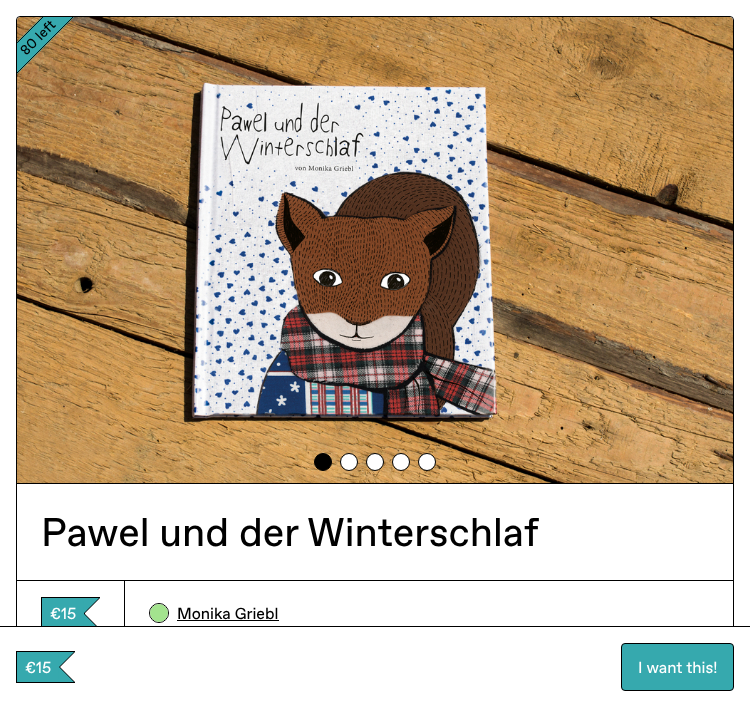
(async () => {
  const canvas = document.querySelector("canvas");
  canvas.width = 750;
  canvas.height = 707;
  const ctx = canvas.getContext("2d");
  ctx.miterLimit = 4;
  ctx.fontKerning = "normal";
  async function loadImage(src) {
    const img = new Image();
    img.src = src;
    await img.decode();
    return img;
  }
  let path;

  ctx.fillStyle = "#ffffff";
  ctx.fillRect(0, 0, 750, 707);
  ctx.beginPath();
  ctx.roundRect(16.5, 16.5, 717, 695, 3.5);
  ctx.strokeStyle = "#000000";
  ctx.stroke();
  ctx.fillStyle = "#000000";
  ctx.fillRect(17, 483, 716, 1);
  ctx.drawImage(await loadImage("img/1.png"), 17, 17, 716, 466);
  ctx.beginPath();
  ctx.arc(323, 462, 8.5, 0, Math.PI * 2);
  ctx.fill();
  ctx.stroke();
  ctx.fillStyle = "#ffffff";
  ctx.beginPath();
  ctx.arc(349, 462, 8.5, 0, Math.PI * 2);
  ctx.fill();
  ctx.stroke();
  ctx.beginPath();
  ctx.arc(375, 462, 8.5, 0, Math.PI * 2);
  ctx.fill();
  ctx.stroke();
  ctx.beginPath();
  ctx.arc(401, 462, 8.5, 0, Math.PI * 2);
  ctx.fill();
  ctx.stroke();
  ctx.beginPath();
  ctx.arc(427, 462, 8.5, 0, Math.PI * 2);
  ctx.fill();
  ctx.stroke();
  ctx.fillStyle = "#36a9ae";
  path = new Path2D("M17 42V74L74 17H42Z");
  ctx.fill(path);
  ctx.save();
  path = new Path2D("M17 42.5L42.5 17H73.5L17 73.5Z");
  ctx.clip(path);
  path = new Path2D("M2 58L58 2L73 17L17 73Z");
  ctx.stroke(path);
  ctx.restore();
  ctx.fillStyle = "#000000";
  ctx.fillRect(125, 580, 608, 1);
  ctx.strokeRect(16.5, 580.5, 108, 66);
  for (const [x, y, w, h, color] of [
    [41, 597, 59, 1, "#000000"],
    [41, 597, 1, 33, "#000000"],
    [42, 598, 42, 28, "#36a9ae"],
  ]) {
    ctx.fillStyle = color;
    ctx.fillRect(x, y, w, h);
  }
  ctx.fillStyle = "#000000";
  path = new Path2D("M84 598H100L85 613ZM100 629H84L85 614Z");
  ctx.fill(path);
  ctx.fillRect(84, 612, 1, 3);
  ctx.fillStyle = "#36a9ae";
  path = new Path2D("M83 598H99L84 613ZM99 629H83L84 614Z");
  ctx.fill(path);
  ctx.beginPath();
  ctx.arc(159, 613, 9.5, 0, Math.PI * 2);
  ctx.stroke();
  ctx.drawImage(await loadImage("img/2.png"), 150, 604, 18, 18);
  for (const [x, y, w, h, color] of [
    [177, 620, 102, 1, "#000000"],
    [0, 626, 750, 1, "#000000"],
    [16, 627, 718, 80, "#ffffff"],
    [16, 651, 59, 1, "#000000"],
    [16, 682, 59, 1, "#000000"],
    [16, 651, 1, 32, "#000000"],
    [17, 652, 42, 30, "#36a9ae"],
  ]) {
    ctx.fillStyle = color;
    ctx.fillRect(x, y, w, h);
  }
  ctx.fillStyle = "#000000";
  path = new Path2D("M59 652H75L60 667ZM75 682H59L60 667Z");
  ctx.fill(path);
  ctx.fillRect(59, 666, 1, 2);
  ctx.fillStyle = "#36a9ae";
  path = new Path2D("M58 652H74L59 667ZM74 682H58L59 667Z");
  ctx.fill(path);
  ctx.beginPath();
  ctx.roundRect(621.5, 643.5, 112, 47, 3.5);
  ctx.fill();
  ctx.stroke();
  ctx.font = "14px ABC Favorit";
  ctx.fillStyle = "#000000";
  ctx.save();
  ctx.translate(41, 41);
  ctx.rotate(-45 * Math.PI / 180);
  ctx.fillText("left", 0, 0);
  ctx.restore();
  ctx.save();
  ctx.translate(26, 56);
  ctx.rotate(-45 * Math.PI / 180);
  ctx.fillText("80", 0, 0);
  ctx.restore();
  ctx.font = "40px ABC Favorit";
  ctx.fillText("Pawel und der Winterschlaf", 41, 546);
  ctx.font = "16px ABC Favorit";
  ctx.fillStyle = "#ffffff";
  ctx.fillText("€15", 50, 619);
  ctx.fillStyle = "#000000";
  ctx.fillText("Monika Griebl", 177, 619);
  ctx.fillStyle = "#ffffff";
  ctx.fillText("€15", 25, 673);
  ctx.fillText("I want this!", 638, 673);
})();
